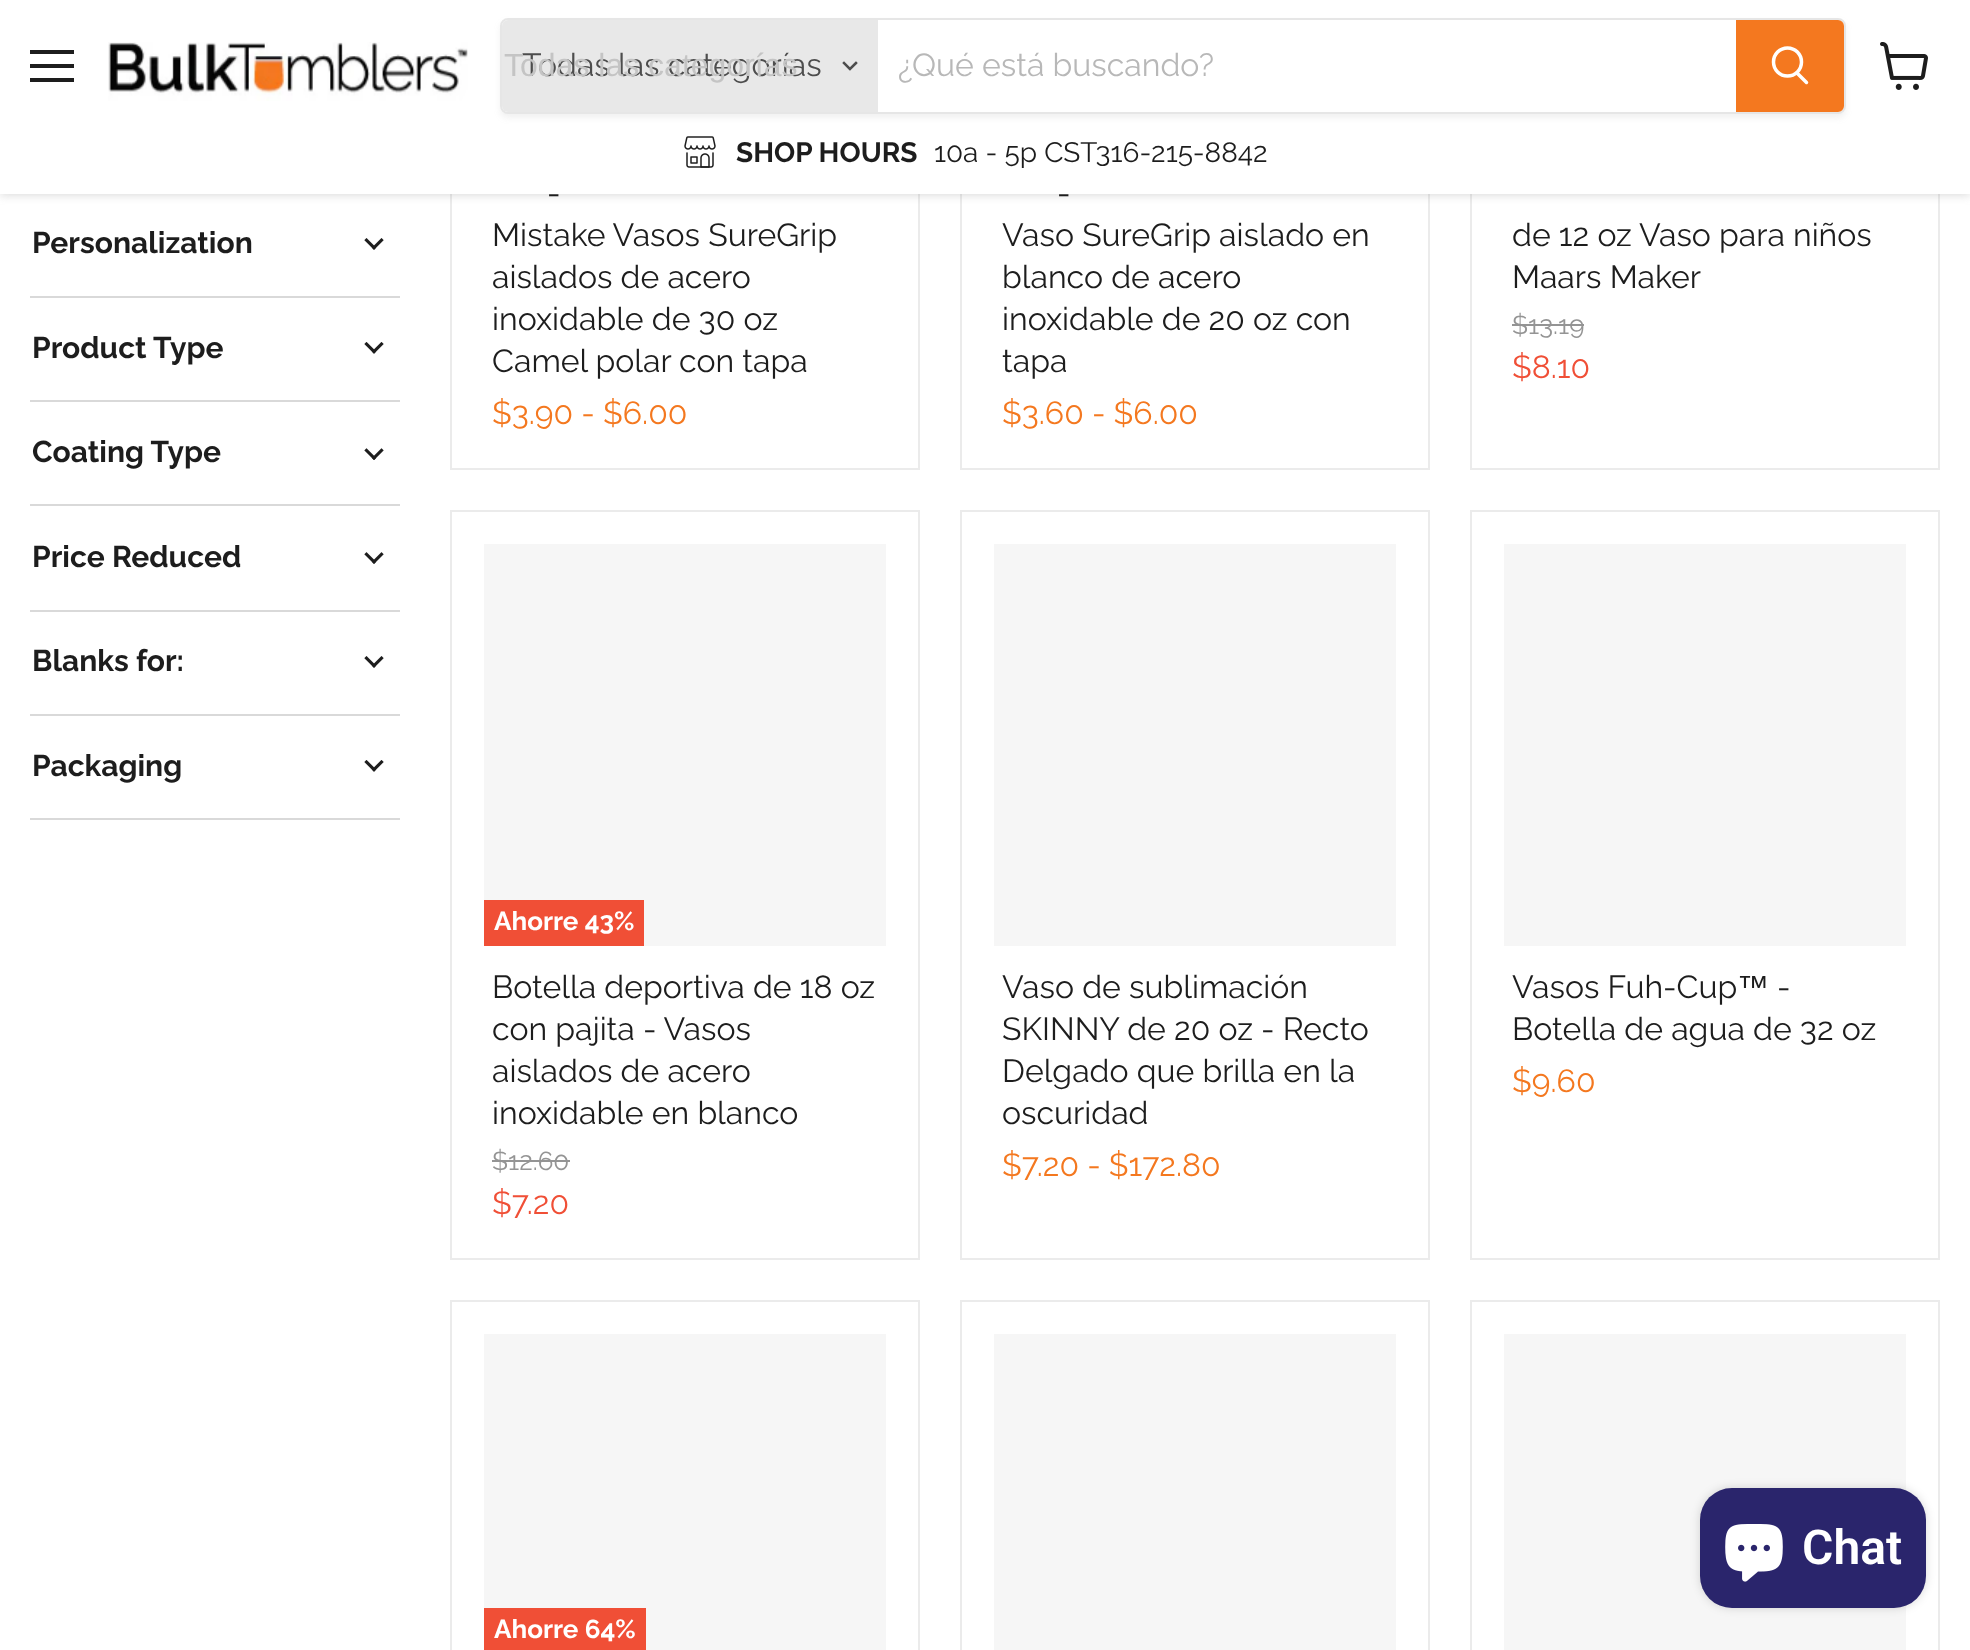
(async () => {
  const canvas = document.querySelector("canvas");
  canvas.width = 1970;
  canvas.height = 1650;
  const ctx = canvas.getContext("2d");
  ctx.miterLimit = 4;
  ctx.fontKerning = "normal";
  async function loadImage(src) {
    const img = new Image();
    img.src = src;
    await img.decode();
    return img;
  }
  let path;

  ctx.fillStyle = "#ffffff";
  ctx.fillRect(0, 0, 1970, 1650);
  ctx.strokeStyle = "#ebebeb";
  ctx.lineWidth = 2;
  ctx.strokeRect(451, -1, 468, 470);
  ctx.strokeRect(961, -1, 468, 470);
  ctx.strokeRect(1471, -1, 468, 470);
  ctx.fillStyle = "rgba(128, 128, 128, 0.25)";
  ctx.filter = "blur(4px)";
  ctx.beginPath();
  ctx.rect(0, 2, 1970, 194);
  ctx.fill();
  ctx.filter = "none";
  for (const [x, y, w, h, color] of [
    [0, 0, 1970, 194, "#ffffff"],
    [30, 50, 44, 4, "#1d1d1d"],
    [30, 64, 44, 4, "#1d1d1d"],
    [30, 78, 44, 4, "#1d1d1d"],
  ]) {
    ctx.fillStyle = color;
    ctx.fillRect(x, y, w, h);
  }
  ctx.drawImage(await loadImage("img/1.png"), 108, 42, 360, 59);
  ctx.save();
  path = new Path2D("M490 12H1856V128H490ZM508 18H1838C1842.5 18 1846 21.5 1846 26V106C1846 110.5 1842.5 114 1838 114H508C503.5 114 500 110.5 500 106V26C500 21.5 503.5 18 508 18Z");
  ctx.clip(path, "evenodd");
  ctx.fillStyle = "rgba(128, 128, 128, 0.11)";
  ctx.filter = "blur(3px)";
  ctx.beginPath();
  ctx.roundRect(500, 22, 1346, 96, 8);
  ctx.fill();
  ctx.filter = "none";
  ctx.restore();
  ctx.beginPath();
  ctx.roundRect(501, 19, 1344, 94, 7);
  ctx.strokeStyle = "rgba(128, 128, 128, 0.2)";
  ctx.stroke();
  ctx.fillStyle = "#e8e8e8";
  ctx.beginPath();
  ctx.roundRect(502, 20, 376, 92, [6, 0, 0, 6]);
  ctx.fill();
  path = new Path2D("M850 69L856 63M850 69L844 63");
  ctx.strokeStyle = "#4d4d4d";
  ctx.lineWidth = 2.5;
  ctx.lineCap = "square";
  ctx.stroke(path);
  ctx.fillStyle = "#f4781f";
  ctx.beginPath();
  ctx.roundRect(1737, 21, 106, 90, [0, 5, 5, 0]);
  ctx.fill();
  ctx.strokeStyle = "#f4781f";
  ctx.lineWidth = 2;
  ctx.stroke();
  path = new Path2D("M1806.5 82.5L1797 73");
  ctx.strokeStyle = "#ffffff";
  ctx.lineWidth = 3.5;
  ctx.lineCap = "round";
  ctx.stroke(path);
  ctx.beginPath();
  ctx.arc(1787.5, 62, 14, 0, Math.PI * 2);
  ctx.stroke();
  ctx.drawImage(await loadImage("img/2.png"), 684, 136, 32, 32);
  ctx.drawImage(await loadImage("img/3.png"), 1880, 42, 48, 48);
  ctx.drawImage(await loadImage("img/4.png"), 364, 238, 20, 12);
  ctx.fillStyle = "#d9d9d9";
  ctx.fillRect(30, 296, 370, 2);
  ctx.drawImage(await loadImage("img/5.png"), 364, 342, 20, 12);
  ctx.fillRect(30, 400, 370, 2);
  ctx.drawImage(await loadImage("img/6.png"), 364, 448, 20, 12);
  ctx.fillRect(30, 504, 370, 2);
  ctx.drawImage(await loadImage("img/7.png"), 364, 552, 20, 12);
  ctx.fillRect(30, 610, 370, 2);
  ctx.drawImage(await loadImage("img/4.png"), 364, 656, 20, 12);
  ctx.fillRect(30, 714, 370, 2);
  ctx.fillRect(30, 818, 370, 2);
  ctx.drawImage(await loadImage("img/5.png"), 364, 760, 20, 12);
  ctx.fillStyle = "#949494";
  ctx.fillRect(1512, 324, 72, 2);
  ctx.strokeStyle = "#ebebeb";
  ctx.lineWidth = 2;
  ctx.strokeRect(451, 511, 468, 748);
  for (const [x, y, w, h, color] of [
    [484, 544, 402, 402, "#f6f6f6"],
    [484, 900, 160, 46, "#f04f36"],
    [492, 1160, 78, 2, "#949494"],
  ]) {
    ctx.fillStyle = color;
    ctx.fillRect(x, y, w, h);
  }
  ctx.strokeRect(961, 511, 468, 748);
  ctx.fillStyle = "#f6f6f6";
  ctx.fillRect(994, 544, 402, 402);
  ctx.strokeRect(1471, 511, 468, 748);
  ctx.fillRect(1504, 544, 402, 402);
  ctx.strokeRect(451, 1301, 468, 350);
  ctx.fillRect(484, 1334, 402, 316);
  ctx.fillStyle = "#f04f36";
  ctx.fillRect(484, 1608, 162, 42);
  ctx.strokeRect(961, 1301, 468, 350);
  ctx.fillStyle = "#f6f6f6";
  ctx.fillRect(994, 1334, 402, 316);
  ctx.strokeRect(1471, 1301, 468, 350);
  ctx.fillRect(1504, 1334, 402, 316);
  ctx.fillStyle = "rgba(0, 0, 0, 0.15)";
  ctx.filter = "blur(5px)";
  ctx.beginPath();
  ctx.roundRect(1700, 1488, 226, 120, 32);
  ctx.fill();
  ctx.filter = "none";
  ctx.fillStyle = "#2a256c";
  ctx.beginPath();
  ctx.roundRect(1700, 1488, 226, 120, 32);
  ctx.fill();
  ctx.drawImage(await loadImage("img/8.png"), 1725, 1524, 58, 58);
  ctx.font = "32px Raleway";
  ctx.fillStyle = "#4d4d4d";
  ctx.fillText("Todas las categorías", 522, 76);
  ctx.font = "32px Liberation Sans";
  ctx.fillStyle = "#c4c4c4";
  ctx.fillText("Todas las categorías", 504, 76);
  ctx.font = "32px Raleway";
  ctx.fillStyle = "#b8b8b8";
  ctx.fillText("¿Qué está buscando?", 898, 76);
  ctx.font = "bold 28px Raleway";
  ctx.fillStyle = "#1d1d1d";
  ctx.fillText("SHOP HOURS", 736, 162);
  ctx.font = "28px Raleway";
  ctx.fillText("10a - 5p CST316-215-8842", 934, 162);
  ctx.font = "bold 30px Raleway";
  for (const [text, x, y] of [
    ["Personalization", 32, 253],
    ["Product Type", 32, 358],
    ["Coating Type", 32, 462],
    ["Price Reduced", 32, 567],
    ["Blanks for:", 32, 671],
    ["Packaging", 32, 776],
  ]) {
    ctx.fillText(text, x, y);
  }
  ctx.font = "32px Raleway";
  for (const [text, x, y] of [
    ["-", 547, 204],
    ["Mistake Vasos SureGrip", 492, 246],
    ["aislados de acero", 492, 288],
    ["inoxidable de 30 oz", 492, 330],
    ["Camel polar con tapa", 492, 372],
  ]) {
    ctx.fillText(text, x, y);
  }
  ctx.fillStyle = "#f4781f";
  ctx.fillText("$3.90 - $6.00", 492, 424);
  ctx.fillStyle = "#1d1d1d";
  for (const [text, x, y] of [
    ["-", 1057, 204],
    ["Vaso SureGrip aislado en", 1002, 246],
    ["blanco de acero", 1002, 288],
    ["inoxidable de 20 oz con", 1002, 330],
    ["tapa", 1002, 372],
  ]) {
    ctx.fillText(text, x, y);
  }
  ctx.fillStyle = "#f4781f";
  ctx.fillText("$3.60 - $6.00", 1002, 424);
  ctx.fillStyle = "#1d1d1d";
  ctx.fillText("de 12 oz Vaso para niños", 1512, 246);
  ctx.fillText("Maars Maker", 1512, 288);
  ctx.font = "26px Raleway";
  ctx.fillStyle = "#949494";
  ctx.fillText("$13.19", 1512, 334);
  ctx.font = "32px Raleway";
  ctx.fillStyle = "#f04f36";
  ctx.fillText("$8.10", 1512, 378);
  ctx.font = "bold 26px Raleway";
  ctx.fillStyle = "#ffffff";
  ctx.fillText("Ahorre 43%", 494, 930);
  ctx.font = "32px Raleway";
  ctx.fillStyle = "#1d1d1d";
  for (const [text, x, y] of [
    ["Botella deportiva de 18 oz", 492, 998],
    ["con pajita - Vasos", 492, 1040],
    ["aislados de acero", 492, 1082],
    ["inoxidable en blanco", 492, 1124],
  ]) {
    ctx.fillText(text, x, y);
  }
  ctx.font = "26px Raleway";
  ctx.fillStyle = "#949494";
  ctx.fillText("$12.60", 492, 1170);
  ctx.font = "32px Raleway";
  ctx.fillStyle = "#f04f36";
  ctx.fillText("$7.20", 492, 1214);
  ctx.fillStyle = "#1d1d1d";
  for (const [text, x, y] of [
    ["Vaso de sublimación", 1002, 998],
    ["SKINNY de 20 oz - Recto", 1002, 1040],
    ["Delgado que brilla en la", 1002, 1082],
    ["oscuridad", 1002, 1124],
  ]) {
    ctx.fillText(text, x, y);
  }
  ctx.fillStyle = "#f4781f";
  ctx.fillText("$7.20 - $172.80", 1002, 1176);
  ctx.fillStyle = "#1d1d1d";
  ctx.fillText("Vasos Fuh-Cup", 1512, 998);
  ctx.font = "32px Liberation Sans";
  ctx.fillText("™", 1737, 998);
  ctx.font = "32px Raleway";
  ctx.fillText("-", 1777, 998);
  ctx.fillText("Botella de agua de 32 oz", 1512, 1040);
  ctx.fillStyle = "#f4781f";
  ctx.fillText("$9.60", 1512, 1092);
  ctx.font = "bold 26px Raleway";
  ctx.fillStyle = "#ffffff";
  ctx.fillText("Ahorre 64%", 494, 1638);
  ctx.font = "600 48px Roboto";
  ctx.fillText("Chat", 1802, 1564);
})();
